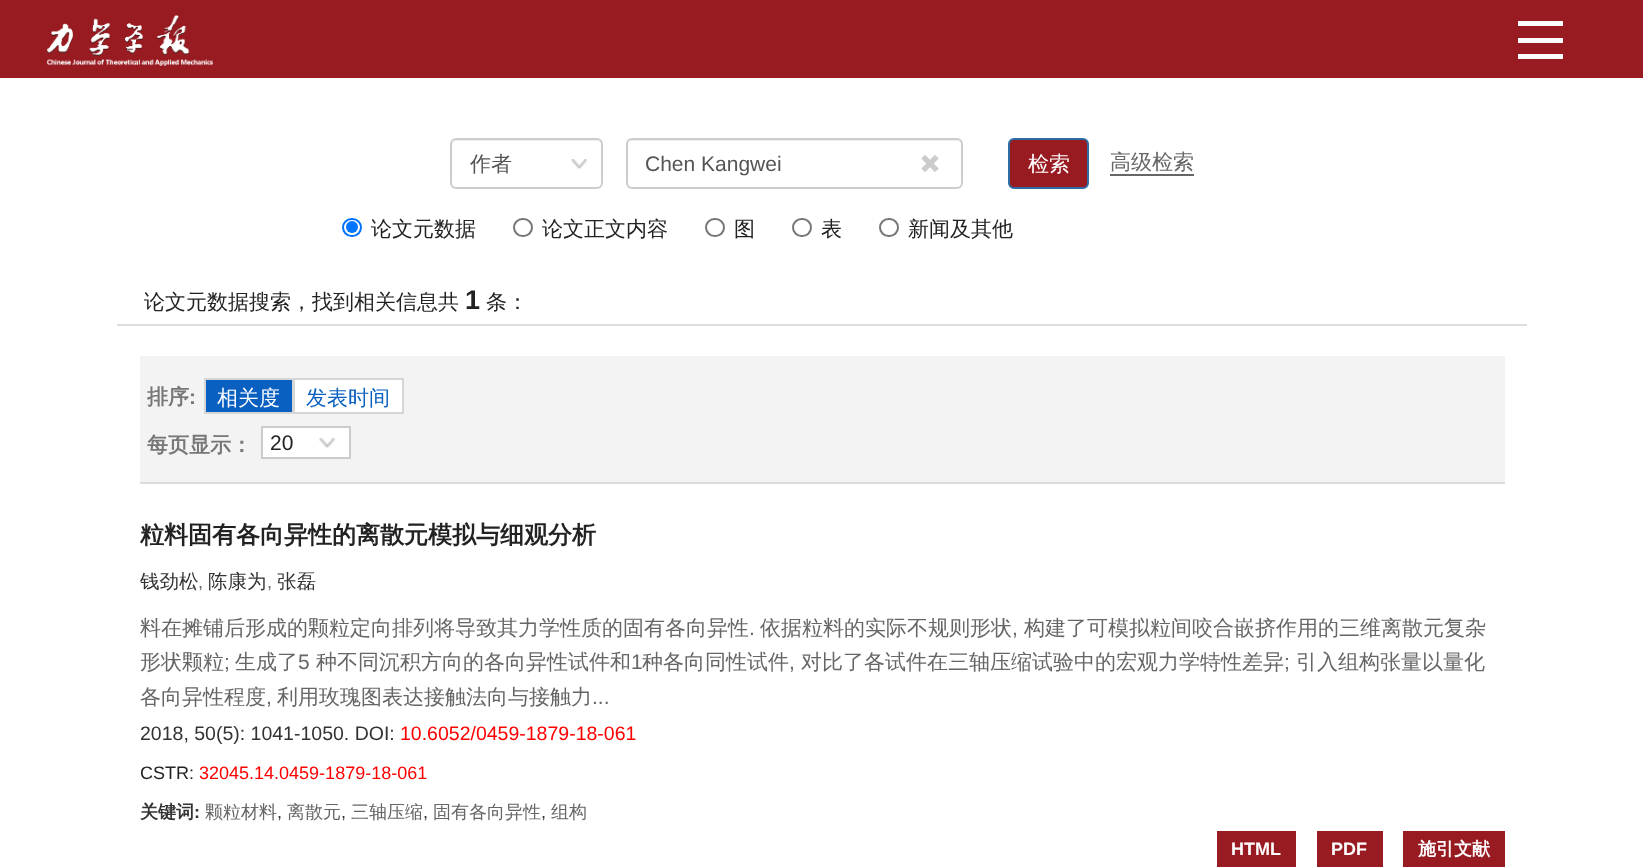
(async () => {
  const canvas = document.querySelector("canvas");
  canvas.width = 1643;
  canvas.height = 867;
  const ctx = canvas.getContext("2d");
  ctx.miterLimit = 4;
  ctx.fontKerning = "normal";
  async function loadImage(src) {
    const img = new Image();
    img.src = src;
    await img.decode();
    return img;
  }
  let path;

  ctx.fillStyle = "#ffffff";
  ctx.fillRect(0, 0, 1643, 867);
  ctx.fillStyle = "#981b21";
  ctx.fillRect(0, 0, 1643, 78);
  ctx.drawImage(await loadImage("img/1.png"), 46, 15, 167, 51);
  for (const [x, y, w, h, color] of [
    [1518, 21, 45, 5, "#ffffff"],
    [1518, 38, 45, 5, "#ffffff"],
    [1518, 54, 45, 5, "#ffffff"],
  ]) {
    ctx.fillStyle = color;
    ctx.fillRect(x, y, w, h);
  }
  ctx.drawImage(await loadImage("img/2.png"), 571, 159, 16, 11);
  ctx.fillStyle = "#ececec";
  path = new Path2D("M456 141H597C599 141 602 143 602 146V145C602 142 600 140 597 140H457C454 140 452 142 452 145V146C452 143 454 141 456 141Z");
  ctx.fill(path);
  ctx.beginPath();
  ctx.roundRect(451, 139, 151, 49, 5);
  ctx.strokeStyle = "#cccccc";
  ctx.lineWidth = 2;
  ctx.stroke();
  path = new Path2D("M632 141H957C959 141 962 143 962 146C962 143 960 140 957 140H632C629 140 627 143 627 146C627 143 629 141 632 141Z");
  ctx.fill(path);
  ctx.beginPath();
  ctx.roundRect(627, 139, 335, 49, 5);
  ctx.stroke();
  ctx.drawImage(await loadImage("img/3.png"), 921, 155, 18, 17);
  ctx.fillStyle = "#981b21";
  ctx.beginPath();
  ctx.roundRect(1009, 139, 79, 49, 5);
  ctx.fill();
  ctx.strokeStyle = "#2e6da4";
  ctx.stroke();
  ctx.fillStyle = "#666666";
  ctx.fillRect(1110, 174, 84, 2);
  ctx.beginPath();
  ctx.roundRect(343, 219, 18, 17, 8.5);
  ctx.strokeStyle = "#0075ff";
  ctx.stroke();
  ctx.fillStyle = "#0075ff";
  ctx.beginPath();
  ctx.arc(352, 227, 6, 0, Math.PI * 2);
  ctx.fill();
  ctx.beginPath();
  ctx.roundRect(514, 219, 18, 17, 8.5);
  ctx.strokeStyle = "#767676";
  ctx.stroke();
  ctx.beginPath();
  ctx.roundRect(706, 219, 18, 17, 8.5);
  ctx.stroke();
  ctx.beginPath();
  ctx.roundRect(793, 219, 18, 17, 8.5);
  ctx.stroke();
  ctx.beginPath();
  ctx.roundRect(880, 219, 18, 17, 8.5);
  ctx.stroke();
  for (const [x, y, w, h, color] of [
    [117, 324, 1410, 2, "#dddddd"],
    [140, 356, 1365, 126, "#f3f3f3"],
    [140, 482, 1365, 2, "#dddddd"],
  ]) {
    ctx.fillStyle = color;
    ctx.fillRect(x, y, w, h);
  }
  ctx.fillStyle = "#0960c0";
  ctx.beginPath();
  ctx.rect(205, 379, 88, 34);
  ctx.fill();
  ctx.strokeStyle = "#d6d6d6";
  ctx.stroke();
  ctx.fillStyle = "#ffffff";
  ctx.beginPath();
  ctx.rect(294, 379, 109, 34);
  ctx.fill();
  ctx.stroke();
  ctx.fillRect(263, 428, 86, 29);
  ctx.drawImage(await loadImage("img/4.png"), 319, 438, 16, 11);
  ctx.strokeStyle = "#cccccc";
  ctx.strokeRect(262, 427, 88, 31);
  for (const [x, y, w, h, color] of [
    [1217, 831, 79, 36, "#981b21"],
    [1317, 831, 66, 36, "#981b21"],
    [1403, 831, 102, 36, "#981b21"],
  ]) {
    ctx.fillStyle = color;
    ctx.fillRect(x, y, w, h);
  }
  ctx.font = "500 21px WenQuanYi Zen Hei";
  ctx.fillStyle = "#555555";
  ctx.fillText("作者", 470, 171);
  ctx.font = "21px Liberation Sans";
  ctx.fillText("Chen Kangwei", 645, 171);
  ctx.font = "500 21px WenQuanYi Zen Hei";
  ctx.fillStyle = "#ffffff";
  ctx.fillText("检索", 1028, 171);
  ctx.fillStyle = "#666666";
  ctx.fillText("高级检索", 1110, 169);
  ctx.fillStyle = "#222222";
  for (const [text, x, y] of [
    ["论文元数据", 371, 236],
    ["论文正文内容", 542, 236],
    ["图", 734, 236],
    ["表", 821, 236],
    ["新闻及其他", 908, 236],
    ["论文元数据搜索，找到相关信息共", 144, 309],
  ]) {
    ctx.fillText(text, x, y);
  }
  ctx.font = "bold 27px Liberation Sans";
  ctx.fillText("1", 465, 309);
  ctx.font = "500 21px WenQuanYi Zen Hei";
  ctx.fillText("条：", 486, 309);
  ctx.font = "bold 21px WenQuanYi Zen Hei";
  ctx.fillStyle = "#777777";
  ctx.fillText("排序", 147, 404);
  ctx.font = "bold 21px Liberation Sans";
  ctx.fillText(":", 189, 404);
  ctx.font = "500 21px WenQuanYi Zen Hei";
  ctx.fillStyle = "#ffffff";
  ctx.fillText("相关度", 217, 405);
  ctx.fillStyle = "#0960c0";
  ctx.fillText("发表时间", 306, 405);
  ctx.font = "bold 21px WenQuanYi Zen Hei";
  ctx.fillStyle = "#777777";
  ctx.fillText("每页显示：", 147, 452);
  ctx.font = "21px Liberation Sans";
  ctx.fillStyle = "#222222";
  ctx.fillText("20", 270, 450);
  ctx.font = "bold 24px WenQuanYi Zen Hei";
  ctx.fillText("粒料固有各向异性的离散元模拟与细观分析", 140, 543);
  ctx.font = "500 19.5px WenQuanYi Zen Hei";
  ctx.fillStyle = "#333333";
  ctx.fillText("钱劲松", 140, 588);
  ctx.font = "18px Liberation Sans";
  ctx.fillStyle = "#666666";
  ctx.fillText(",", 198, 588);
  ctx.font = "500 19.5px WenQuanYi Zen Hei";
  ctx.fillStyle = "#333333";
  ctx.fillText("陈康为", 208, 588);
  ctx.font = "18px Liberation Sans";
  ctx.fillStyle = "#666666";
  ctx.fillText(",", 267, 588);
  ctx.font = "500 19.5px WenQuanYi Zen Hei";
  ctx.fillStyle = "#333333";
  ctx.fillText("张磊", 277, 588);
  ctx.font = "500 21px WenQuanYi Zen Hei";
  ctx.fillStyle = "#666666";
  ctx.fillText("料在摊铺后形成的颗粒定向排列将导致其力学性质的固有各向异性", 140, 635);
  ctx.font = "21px Liberation Sans";
  ctx.fillText(".", 749, 635);
  ctx.font = "500 21px WenQuanYi Zen Hei";
  ctx.fillText("依据粒料的实际不规则形状", 760, 635);
  ctx.font = "21px Liberation Sans";
  ctx.fillText(",", 1012, 635);
  ctx.font = "500 21px WenQuanYi Zen Hei";
  ctx.fillText("构建了可模拟粒间咬合嵌挤作用的三维离散元复杂", 1024, 635);
  ctx.fillText("形状颗粒", 140, 669);
  ctx.font = "21px Liberation Sans";
  ctx.fillText(";", 224, 669);
  ctx.font = "500 21px WenQuanYi Zen Hei";
  ctx.fillText("生成了", 235, 669);
  ctx.font = "21px Liberation Sans";
  ctx.fillText("5", 298, 669);
  ctx.font = "500 21px WenQuanYi Zen Hei";
  ctx.fillText("种不同沉积方向的各向异性试件和", 316, 669);
  ctx.font = "21px Liberation Sans";
  ctx.fillText("1", 631, 669);
  ctx.font = "500 21px WenQuanYi Zen Hei";
  ctx.fillText("种各向同性试件", 642, 669);
  ctx.font = "21px Liberation Sans";
  ctx.fillText(",", 789, 669);
  ctx.font = "500 21px WenQuanYi Zen Hei";
  ctx.fillText("对比了各试件在三轴压缩试验中的宏观力学特性差异", 801, 669);
  ctx.font = "21px Liberation Sans";
  ctx.fillText(";", 1284, 669);
  ctx.font = "500 21px WenQuanYi Zen Hei";
  ctx.fillText("引入组构张量以量化", 1296, 669);
  ctx.fillText("各向异性程度", 140, 704);
  ctx.font = "21px Liberation Sans";
  ctx.fillText(",", 266, 704);
  ctx.font = "500 21px WenQuanYi Zen Hei";
  ctx.fillText("利用玫瑰图表达接触法向与接触力", 277, 704);
  ctx.font = "21px Liberation Sans";
  ctx.fillText("...", 592, 704);
  ctx.font = "19.5px Liberation Sans";
  ctx.fillStyle = "#333333";
  ctx.fillText("2018, 50(5): 1041-1050. DOI:", 140, 740);
  ctx.fillStyle = "#ff0000";
  ctx.fillText("10.6052/0459-1879-18-061", 400, 740);
  ctx.font = "18px Liberation Sans";
  ctx.fillStyle = "#222222";
  ctx.fillText("CSTR:", 140, 779);
  ctx.fillStyle = "#ff0000";
  ctx.fillText("32045.14.0459-1879-18-061", 199, 779);
  ctx.font = "bold 18px WenQuanYi Zen Hei";
  ctx.fillStyle = "#333333";
  ctx.fillText("关键词", 140, 818);
  ctx.font = "bold 18px Liberation Sans";
  ctx.fillText(":", 194, 818);
  ctx.font = "500 18px WenQuanYi Zen Hei";
  ctx.fillStyle = "#666666";
  for (const [text, x, y] of [
    ["颗粒材料", 205, 818],
    ["离散元", 287, 818],
    ["三轴压缩", 351, 818],
    ["固有各向异性", 433, 818],
    ["组构", 551, 818],
  ]) {
    ctx.fillText(text, x, y);
  }
  ctx.font = "18px Liberation Sans";
  ctx.fillStyle = "#333333";
  for (const [text, x, y] of [
    [",", 277, 818],
    [",", 341, 818],
    [",", 423, 818],
    [",", 541, 818],
  ]) {
    ctx.fillText(text, x, y);
  }
  ctx.font = "bold 18px Liberation Sans";
  ctx.fillStyle = "#ffffff";
  ctx.fillText("HTML", 1231, 855);
  ctx.fillText("PDF", 1331, 855);
  ctx.font = "bold 18px WenQuanYi Zen Hei";
  ctx.fillText("施引文献", 1418, 855);
})();
